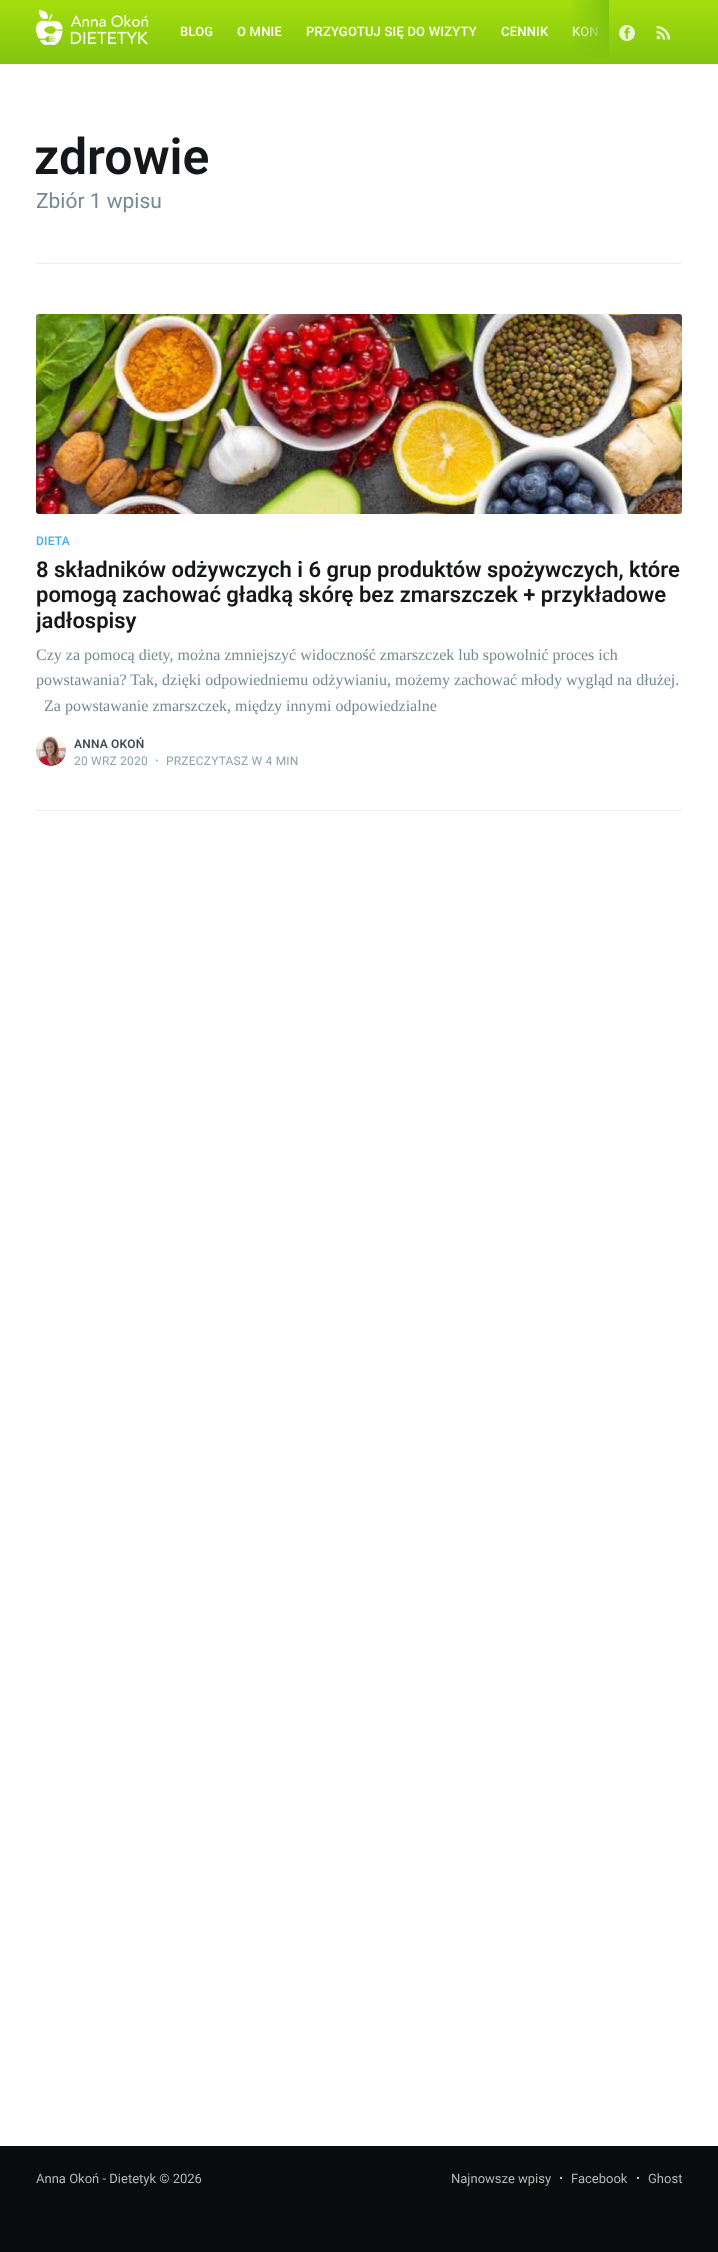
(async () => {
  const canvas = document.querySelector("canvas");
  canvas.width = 718;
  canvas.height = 2252;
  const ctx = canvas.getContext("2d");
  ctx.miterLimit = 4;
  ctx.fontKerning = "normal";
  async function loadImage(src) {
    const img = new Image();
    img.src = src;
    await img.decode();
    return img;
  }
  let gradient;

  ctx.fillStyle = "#ffffff";
  ctx.fillRect(0, 0, 718, 2252);
  gradient = ctx.createLinearGradient(359, 64, 359, 0);
  gradient.addColorStop(0.01, "#82c410");
  gradient.addColorStop(1, "#a6df0e");
  ctx.fillStyle = gradient;
  ctx.fillRect(0, 0, 718, 64);
  ctx.drawImage(await loadImage("img/1.png"), 36, 10, 112, 35);
  ctx.drawImage(await loadImage("img/2.png"), 619, 25, 16, 16);
  ctx.drawImage(await loadImage("img/3.png"), 656, 25, 15, 15);
  ctx.fillStyle = "#eaeff1";
  ctx.fillRect(36, 263, 646, 1);
  ctx.fillRect(36, 810, 646, 1);
  ctx.drawImage(await loadImage("img/4.png"), 36, 314, 646, 200);
  ctx.fillStyle = "#e4eaed";
  ctx.beginPath();
  ctx.arc(51, 751, 15, 0, Math.PI * 2);
  ctx.fill();
  ctx.drawImage(await loadImage("img/5.png"), 36, 736, 30, 30);
  ctx.fillStyle = "#0a0b0c";
  ctx.fillRect(0, 2146, 718, 106);
  ctx.fillStyle = "#ffffff";
  ctx.beginPath();
  ctx.arc(561, 2178, 1, 0, Math.PI * 2);
  ctx.fill();
  ctx.beginPath();
  ctx.arc(638, 2178, 1, 0, Math.PI * 2);
  ctx.fill();
  ctx.letterSpacing = "0.2px";
  ctx.font = "500 13px Roboto";
  for (const [text, x, y] of [
    ["BLOG", 180, 36],
    ["O MNIE", 237, 36],
    ["PRZYGOTUJ SIĘ DO WIZYTY", 306, 36],
    ["CENNIK", 501, 36],
    ["KON", 572, 36],
  ]) {
    ctx.fillText(text, x, y);
  }
  gradient = ctx.createLinearGradient(609, 62, 569, 63);
  gradient.addColorStop(0, "#82c410");
  gradient.addColorStop(1, "rgba(130, 196, 16, 0)");
  ctx.fillStyle = gradient;
  ctx.fillRect(570, 0, 39, 59);
  ctx.letterSpacing = "0px";
  ctx.font = "600 50px Roboto";
  ctx.fillStyle = "#15171a";
  ctx.fillText("zdrowie", 34, 174);
  ctx.font = "21px Roboto";
  ctx.fillStyle = "#738a94";
  ctx.fillText("Zbiór 1 wpisu", 36, 208);
  ctx.letterSpacing = "0.2px";
  ctx.font = "500 12px Roboto";
  ctx.fillStyle = "#3eb0ef";
  ctx.fillText("DIETA", 36, 545);
  ctx.letterSpacing = "0px";
  ctx.font = "600 22px Roboto";
  ctx.fillStyle = "#15171a";
  ctx.fillText("8 składników odżywczych i 6 grup produktów spożywczych, które", 36, 577);
  ctx.fillText("pomogą zachować gładką skórę bez zmarszczek + przykładowe", 36, 602);
  ctx.save();
  ctx.beginPath();
  ctx.rect(36, 314, 646, 496);
  ctx.clip();
  ctx.fillText("jadłospisy", 36, 628);
  ctx.restore();
  ctx.font = "16px Liberation Serif";
  ctx.fillStyle = "#738a94";
  for (const [text, x, y] of [
    ["Czy za pomocą diety, można zmniejszyć widoczność zmarszczek lub spowolnić proces ich", 36, 660],
    ["powstawania? Tak, dzięki odpowiedniemu odżywianiu, możemy zachować młody wygląd na dłużej.", 36, 685],
    ["Za powstawanie zmarszczek, między innymi odpowiedzialne", 44, 711],
  ]) {
    ctx.fillText(text, x, y);
  }
  ctx.letterSpacing = "0.2px";
  ctx.font = "600 12px Roboto";
  ctx.fillStyle = "#434952";
  ctx.fillText("ANNA OKOŃ", 74, 748);
  ctx.font = "12px Roboto";
  ctx.fillStyle = "#90a2aa";
  ctx.fillText("20 WRZ 2020", 74, 765);
  ctx.fillStyle = "#bcc7cc";
  ctx.fillText("•", 155, 765);
  ctx.fillStyle = "#90a2aa";
  ctx.fillText("PRZECZYTASZ W 4 MIN", 166, 765);
  ctx.letterSpacing = "0px";
  ctx.font = "13px Roboto";
  ctx.fillStyle = "#b6b6b6";
  for (const [text, x, y] of [
    ["Anna Okoń - Dietetyk © 2026", 36, 2183],
    ["Najnowsze wpisy", 451, 2183],
    ["Facebook", 571, 2183],
    ["Ghost", 648, 2183],
  ]) {
    ctx.fillText(text, x, y);
  }
})();
